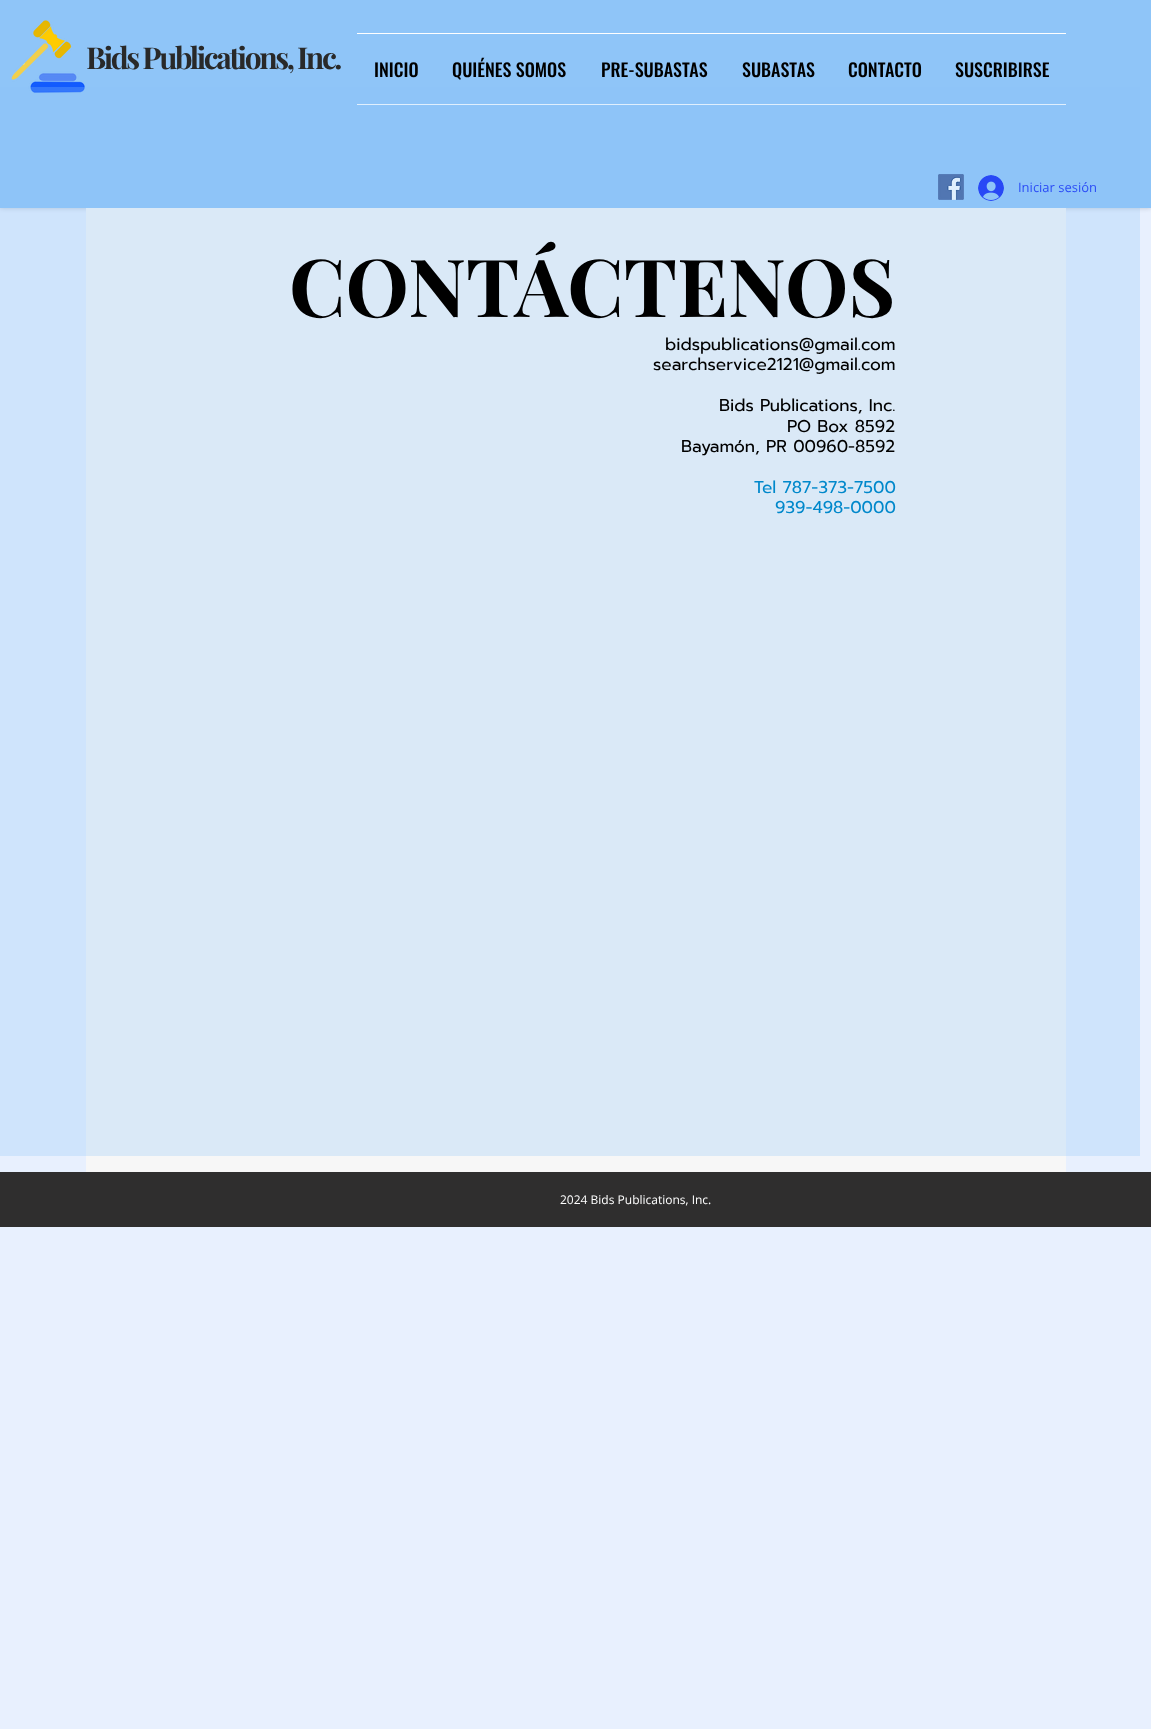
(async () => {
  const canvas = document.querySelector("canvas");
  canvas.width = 1151;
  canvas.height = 1729;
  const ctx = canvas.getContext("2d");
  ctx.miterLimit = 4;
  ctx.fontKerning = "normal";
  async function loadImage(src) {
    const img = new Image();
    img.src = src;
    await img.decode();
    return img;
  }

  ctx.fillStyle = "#e8f0fe";
  ctx.fillRect(0, 0, 1151, 1729);
  ctx.fillStyle = "rgba(0, 0, 0, 0.19)";
  ctx.filter = "blur(2.5px)";
  ctx.beginPath();
  ctx.rect(0, 0, 1151, 208);
  ctx.fill();
  ctx.filter = "none";
  ctx.fillStyle = "#8fc5f8";
  ctx.fillRect(0, 0, 1151, 208);
  ctx.drawImage(await loadImage("img/1.png"), 11, 20, 74, 73);
  ctx.fillStyle = "#ffffff";
  ctx.fillRect(357, 33, 709, 1);
  ctx.fillRect(357, 104, 709, 1);
  ctx.drawImage(await loadImage("img/2.png"), 938, 174, 26, 26);
  ctx.drawImage(await loadImage("img/3.png"), 978, 175, 26, 26);
  ctx.fillStyle = "#f7f7f7";
  ctx.fillRect(86, 208, 980, 964);
  ctx.fillStyle = "#2f2e2e";
  ctx.fillRect(0, 1172, 1151, 55);
  ctx.letterSpacing = "-2.4px";
  ctx.font = "bold 30px Playfair Display";
  ctx.fillStyle = "#292929";
  ctx.fillText("Bids Publications, Inc.", 86, 69);
  ctx.letterSpacing = "0px";
  ctx.font = "500 18px Oswald";
  ctx.fillStyle = "#000000";
  for (const [text, x, y] of [
    ["INICIO", 374, 77],
    ["QUIÉNES SOMOS", 452, 77],
    ["PRE-SUBASTAS", 601, 77],
    ["SUBASTAS", 742, 77],
    ["CONTACTO", 848, 77],
    ["SUSCRIBIRSE", 955, 77],
  ]) {
    ctx.fillText(text, x, y);
  }
  ctx.font = "13px Open Sans";
  ctx.fillStyle = "#041bf6";
  ctx.fillText("Iniciar sesión", 1018, 192);
  ctx.fillStyle = "rgba(139, 195, 248, 0.27)";
  ctx.fillRect(0, 87, 1140, 1069);
  ctx.font = "bold 80px Playfair Display";
  ctx.fillStyle = "#000000";
  ctx.fillText("CONTÁCTENOS", 289, 317);
  ctx.font = "17px Prompt";
  for (const [text, x, y] of [
    ["bidspublications@gmail.com", 665, 350],
    ["searchservice2121@gmail.com", 653, 370],
    ["Bids Publications, Inc.", 719, 411],
    ["PO Box 8592", 787, 432],
    ["Bayamón, PR 00960-8592", 681, 452],
  ]) {
    ctx.fillText(text, x, y);
  }
  ctx.fillStyle = "#0088cb";
  ctx.fillText("Tel 787-373-7500", 754, 493);
  ctx.fillText("939-498-0000", 775, 513);
  ctx.font = "12px Open Sans";
  ctx.fillStyle = "#ffffff";
  ctx.fillText("2024 Bids Publications, Inc.", 560, 1204);
})();
